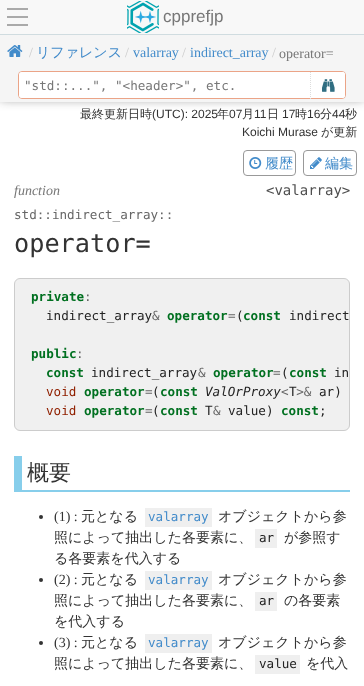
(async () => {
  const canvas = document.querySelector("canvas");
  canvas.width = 364;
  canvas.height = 686;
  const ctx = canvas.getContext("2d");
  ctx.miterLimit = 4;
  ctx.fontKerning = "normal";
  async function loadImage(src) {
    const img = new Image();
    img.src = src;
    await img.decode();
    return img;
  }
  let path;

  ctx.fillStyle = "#ffffff";
  ctx.fillRect(0, 0, 364, 686);
  ctx.fillStyle = "rgba(20, 20, 20, 0.6)";
  ctx.filter = "blur(6px)";
  ctx.beginPath();
  ctx.rect(0, 31, 364, 67);
  ctx.fill();
  ctx.filter = "none";
  for (const [x, y, w, h, color] of [
    [0, 0, 364, 34, "#f8f8f8"],
    [0, 34, 364, 1, "#d0dce0"],
    [7, 8, 21, 2, "#aaaaaa"],
    [7, 16, 21, 2, "#aaaaaa"],
    [7, 24, 21, 2, "#aaaaaa"],
  ]) {
    ctx.fillStyle = color;
    ctx.fillRect(x, y, w, h);
  }
  ctx.drawImage(await loadImage("img/1.png"), 127, 1, 32, 32);
  ctx.fillStyle = "#f5f5f5";
  ctx.fillRect(0, 35, 364, 67);
  ctx.drawImage(await loadImage("img/2.png"), 7, 45, 16, 12);
  ctx.beginPath();
  ctx.roundRect(18.5, 71.5, 327, 27, 3.5);
  ctx.strokeStyle = "#eba487";
  ctx.stroke();
  ctx.fillStyle = "#ffffff";
  ctx.beginPath();
  ctx.roundRect(19, 72, 326, 26, 3);
  ctx.fill();
  ctx.beginPath();
  ctx.roundRect(310, 72, 35, 26, [0, 3, 3, 0]);
  ctx.fill();
  path = new Path2D("M310.5 72V100");
  ctx.strokeStyle = "#dddddd";
  ctx.setLineDash([1, 1]);
  ctx.stroke(path);
  ctx.drawImage(await loadImage("img/3.png"), 322, 79, 13, 13);
  ctx.beginPath();
  ctx.roundRect(243.5, 150.5, 52, 25, 3.5);
  ctx.strokeStyle = "#999999";
  ctx.setLineDash([]);
  ctx.stroke();
  ctx.drawImage(await loadImage("img/4.png"), 249, 157, 13, 12);
  ctx.beginPath();
  ctx.roundRect(303.5, 150.5, 53, 25, 3.5);
  ctx.stroke();
  ctx.drawImage(await loadImage("img/5.png"), 310, 157, 12, 12);
  ctx.fillStyle = "#f0f0f0";
  ctx.beginPath();
  ctx.roundRect(14.5, 278.5, 335, 152, 5.5);
  ctx.fill();
  ctx.strokeStyle = "#cccccc";
  ctx.stroke();
  ctx.fillStyle = "#87ceeb";
  ctx.fillRect(14, 490, 336, 2);
  ctx.fillRect(14, 456, 8, 36);
  ctx.fillStyle = "#333333";
  ctx.beginPath();
  ctx.arc(41, 517, 2, 0, Math.PI * 2);
  ctx.fill();
  ctx.fillStyle = "#efefef";
  ctx.fillRect(145, 508, 67, 19);
  ctx.fillRect(255, 529, 22, 19);
  ctx.fillStyle = "#333333";
  ctx.beginPath();
  ctx.arc(41, 580, 2, 0, Math.PI * 2);
  ctx.fill();
  ctx.fillStyle = "#efefef";
  ctx.fillRect(145, 571, 67, 19);
  ctx.fillRect(255, 592, 22, 19);
  ctx.fillStyle = "#333333";
  ctx.beginPath();
  ctx.arc(41, 643, 2, 0, Math.PI * 2);
  ctx.fill();
  ctx.fillStyle = "#efefef";
  ctx.fillRect(145, 634, 67, 19);
  ctx.fillRect(255, 655, 45, 19);
  ctx.font = "17px Liberation Sans";
  ctx.fillStyle = "#777777";
  ctx.fillText("cpprefjp", 163, 22);
  ctx.font = "14px Liberation Serif";
  ctx.fillStyle = "#cccccc";
  ctx.fillText("/", 29, 57);
  ctx.font = "500 14px WenQuanYi Zen Hei";
  ctx.fillStyle = "#428bca";
  ctx.fillText("リファレンス", 36, 57);
  ctx.font = "14px Liberation Serif";
  ctx.fillStyle = "#cccccc";
  ctx.fillText("/", 125, 57);
  ctx.fillStyle = "#428bca";
  ctx.fillText("valarray", 133, 57);
  ctx.fillStyle = "#cccccc";
  ctx.fillText("/", 182, 57);
  ctx.fillStyle = "#428bca";
  ctx.fillText("indirect_array", 190, 57);
  ctx.fillStyle = "#cccccc";
  ctx.fillText("/", 272, 57);
  ctx.fillStyle = "#777777";
  ctx.fillText("operator=", 279, 58);
  ctx.font = "12.6px DejaVu Sans Mono";
  ctx.fillText("\"std::...\", \"<header>\", etc.", 24, 90);
  ctx.font = "500 12px WenQuanYi Zen Hei";
  ctx.fillStyle = "#333333";
  ctx.fillText("最終更新日時", 80, 118);
  ctx.font = "12px Liberation Sans";
  ctx.fillText("(UTC): 2025", 152, 118);
  ctx.font = "500 12px WenQuanYi Zen Hei";
  ctx.fillText("年", 217, 118);
  ctx.font = "12px Liberation Sans";
  ctx.fillText("07", 229, 118);
  ctx.font = "500 12px WenQuanYi Zen Hei";
  ctx.fillText("月", 242, 118);
  ctx.font = "12px Liberation Sans";
  ctx.fillText("11", 254, 118);
  ctx.font = "500 12px WenQuanYi Zen Hei";
  ctx.fillText("日", 267, 118);
  ctx.font = "12px Liberation Sans";
  ctx.fillText("17", 282, 118);
  ctx.font = "500 12px WenQuanYi Zen Hei";
  ctx.fillText("時", 295, 118);
  ctx.font = "12px Liberation Sans";
  ctx.fillText("16", 307, 118);
  ctx.font = "500 12px WenQuanYi Zen Hei";
  ctx.fillText("分", 320, 118);
  ctx.font = "12px Liberation Sans";
  ctx.fillText("44", 332, 118);
  ctx.font = "500 12px WenQuanYi Zen Hei";
  ctx.fillText("秒", 345, 118);
  ctx.font = "12px Liberation Sans";
  ctx.fillText("Koichi Murase", 242, 136);
  ctx.font = "500 12px WenQuanYi Zen Hei";
  ctx.fillText("が更新", 321, 136);
  ctx.font = "500 14px WenQuanYi Zen Hei";
  ctx.fillStyle = "#428bca";
  ctx.fillText("履歴", 265, 168);
  ctx.fillText("編集", 325, 168);
  ctx.font = "italic 14px Liberation Serif";
  ctx.fillStyle = "#777777";
  ctx.fillText("function", 14, 195);
  ctx.font = "14px DejaVu Sans Mono";
  ctx.fillStyle = "#4e4e4e";
  ctx.fillText("<valarray>", 266, 195);
  ctx.font = "12.6px DejaVu Sans Mono";
  ctx.fillStyle = "#666666";
  ctx.fillText("std::indirect_array::", 14, 219);
  ctx.font = "25.25px DejaVu Sans Mono";
  ctx.fillStyle = "#333333";
  ctx.fillText("operator=", 14, 252);
  ctx.font = "bold 12.6px DejaVu Sans Mono";
  ctx.fillStyle = "#007020";
  ctx.fillText("private", 31, 301);
  ctx.font = "12.6px DejaVu Sans Mono";
  ctx.fillStyle = "#666666";
  ctx.fillText(":", 84, 301);
  ctx.fillStyle = "#232323";
  ctx.fillText("indirect_array", 46, 320);
  ctx.fillStyle = "#666666";
  ctx.fillText("&", 152, 320);
  ctx.font = "bold 12.6px DejaVu Sans Mono";
  ctx.fillStyle = "#007020";
  ctx.fillText("operator", 167, 320);
  ctx.font = "12.6px DejaVu Sans Mono";
  ctx.fillStyle = "#666666";
  ctx.fillText("=", 228, 320);
  ctx.fillStyle = "#232323";
  ctx.fillText("(", 236, 320);
  ctx.font = "bold 12.6px DejaVu Sans Mono";
  ctx.fillStyle = "#007020";
  ctx.fillText("const", 243, 320);
  ctx.font = "12.6px DejaVu Sans Mono";
  ctx.fillStyle = "#232323";
  ctx.fillText("indirect", 289, 320);
  ctx.font = "bold 12.6px DejaVu Sans Mono";
  ctx.fillStyle = "#007020";
  ctx.fillText("public", 31, 358);
  ctx.font = "12.6px DejaVu Sans Mono";
  ctx.fillStyle = "#666666";
  ctx.fillText(":", 76, 358);
  ctx.font = "bold 12.6px DejaVu Sans Mono";
  ctx.fillStyle = "#007020";
  ctx.fillText("const", 46, 377);
  ctx.font = "12.6px DejaVu Sans Mono";
  ctx.fillStyle = "#232323";
  ctx.fillText("indirect_array", 91, 377);
  ctx.fillStyle = "#666666";
  ctx.fillText("&", 198, 377);
  ctx.font = "bold 12.6px DejaVu Sans Mono";
  ctx.fillStyle = "#007020";
  ctx.fillText("operator", 213, 377);
  ctx.font = "12.6px DejaVu Sans Mono";
  ctx.fillStyle = "#666666";
  ctx.fillText("=", 273, 377);
  ctx.fillStyle = "#232323";
  ctx.fillText("(", 281, 377);
  ctx.font = "bold 12.6px DejaVu Sans Mono";
  ctx.fillStyle = "#007020";
  ctx.fillText("const", 289, 377);
  ctx.font = "12.6px DejaVu Sans Mono";
  ctx.fillStyle = "#232323";
  ctx.fillText("in", 334, 377);
  ctx.fillStyle = "#902000";
  ctx.fillText("void", 46, 396);
  ctx.fillStyle = "#232323";
  ctx.fillText("(", 152, 396);
  ctx.font = "italic 12.6px DejaVu Sans Mono";
  ctx.fillText("ValOrProxy", 205, 396);
  ctx.font = "12.6px DejaVu Sans Mono";
  ctx.fillStyle = "#666666";
  ctx.fillText("< >&", 281, 396);
  ctx.font = "bold 12.6px DejaVu Sans Mono";
  ctx.fillStyle = "#007020";
  ctx.fillText("operator", 84, 396);
  ctx.font = "12.6px DejaVu Sans Mono";
  ctx.fillStyle = "#666666";
  ctx.fillText("=", 145, 396);
  ctx.font = "bold 12.6px DejaVu Sans Mono";
  ctx.fillStyle = "#007020";
  ctx.fillText("const", 160, 396);
  ctx.font = "12.6px DejaVu Sans Mono";
  ctx.fillStyle = "#232323";
  ctx.fillText("T", 289, 396);
  ctx.fillText("ar)", 319, 396);
  ctx.fillStyle = "#902000";
  ctx.fillText("void", 46, 415);
  ctx.font = "bold 12.6px DejaVu Sans Mono";
  ctx.fillStyle = "#007020";
  ctx.fillText("operator", 84, 415);
  ctx.font = "12.6px DejaVu Sans Mono";
  ctx.fillStyle = "#666666";
  ctx.fillText("=", 145, 415);
  ctx.fillStyle = "#232323";
  ctx.fillText("(", 152, 415);
  ctx.font = "bold 12.6px DejaVu Sans Mono";
  ctx.fillStyle = "#007020";
  ctx.fillText("const", 160, 415);
  ctx.font = "12.6px DejaVu Sans Mono";
  ctx.fillStyle = "#232323";
  ctx.fillText("T", 205, 415);
  ctx.fillStyle = "#666666";
  ctx.fillText("&", 213, 415);
  ctx.fillStyle = "#232323";
  ctx.fillText("value)", 228, 415);
  ctx.font = "bold 12.6px DejaVu Sans Mono";
  ctx.fillStyle = "#007020";
  ctx.fillText("const", 281, 415);
  ctx.font = "12.6px DejaVu Sans Mono";
  ctx.fillStyle = "#232323";
  ctx.fillText(";", 319, 415);
  ctx.font = "500 22px WenQuanYi Zen Hei";
  ctx.fillStyle = "#333333";
  ctx.fillText("概要", 27, 480);
  ctx.font = "14px Liberation Serif";
  ctx.fillText("(1) :", 54, 521);
  ctx.font = "500 14px WenQuanYi Zen Hei";
  ctx.fillText("元となる", 81, 521);
  ctx.font = "12.6px DejaVu Sans Mono";
  ctx.fillStyle = "#428bca";
  ctx.fillText("valarray", 148, 521);
  ctx.font = "500 14px WenQuanYi Zen Hei";
  ctx.fillStyle = "#333333";
  ctx.fillText("オブジェクトから参", 218, 521);
  ctx.fillText("照によって抽出した各要素に、", 54, 542);
  ctx.font = "12.6px DejaVu Sans Mono";
  ctx.fillStyle = "#232323";
  ctx.fillText("ar", 259, 542);
  ctx.font = "500 14px WenQuanYi Zen Hei";
  ctx.fillStyle = "#333333";
  ctx.fillText("が参照す", 284, 542);
  ctx.fillText("る各要素を代入する", 54, 563);
  ctx.font = "14px Liberation Serif";
  ctx.fillText("(2) :", 54, 584);
  ctx.font = "500 14px WenQuanYi Zen Hei";
  ctx.fillText("元となる", 81, 584);
  ctx.font = "12.6px DejaVu Sans Mono";
  ctx.fillStyle = "#428bca";
  ctx.fillText("valarray", 148, 584);
  ctx.font = "500 14px WenQuanYi Zen Hei";
  ctx.fillStyle = "#333333";
  ctx.fillText("オブジェクトから参", 218, 584);
  ctx.fillText("照によって抽出した各要素に、", 54, 605);
  ctx.font = "12.6px DejaVu Sans Mono";
  ctx.fillStyle = "#232323";
  ctx.fillText("ar", 259, 605);
  ctx.font = "500 14px WenQuanYi Zen Hei";
  ctx.fillStyle = "#333333";
  ctx.fillText("の各要素", 284, 605);
  ctx.fillText("を代入する", 54, 626);
  ctx.font = "14px Liberation Serif";
  ctx.fillText("(3) :", 54, 647);
  ctx.font = "500 14px WenQuanYi Zen Hei";
  ctx.fillText("元となる", 81, 647);
  ctx.font = "12.6px DejaVu Sans Mono";
  ctx.fillStyle = "#428bca";
  ctx.fillText("valarray", 148, 647);
  ctx.font = "500 14px WenQuanYi Zen Hei";
  ctx.fillStyle = "#333333";
  ctx.fillText("オブジェクトから参", 218, 647);
  ctx.fillText("照によって抽出した各要素に、", 54, 668);
  ctx.font = "12.6px DejaVu Sans Mono";
  ctx.fillStyle = "#232323";
  ctx.fillText("value", 259, 668);
  ctx.font = "500 14px WenQuanYi Zen Hei";
  ctx.fillStyle = "#333333";
  ctx.fillText("を代入", 306, 668);
})();
